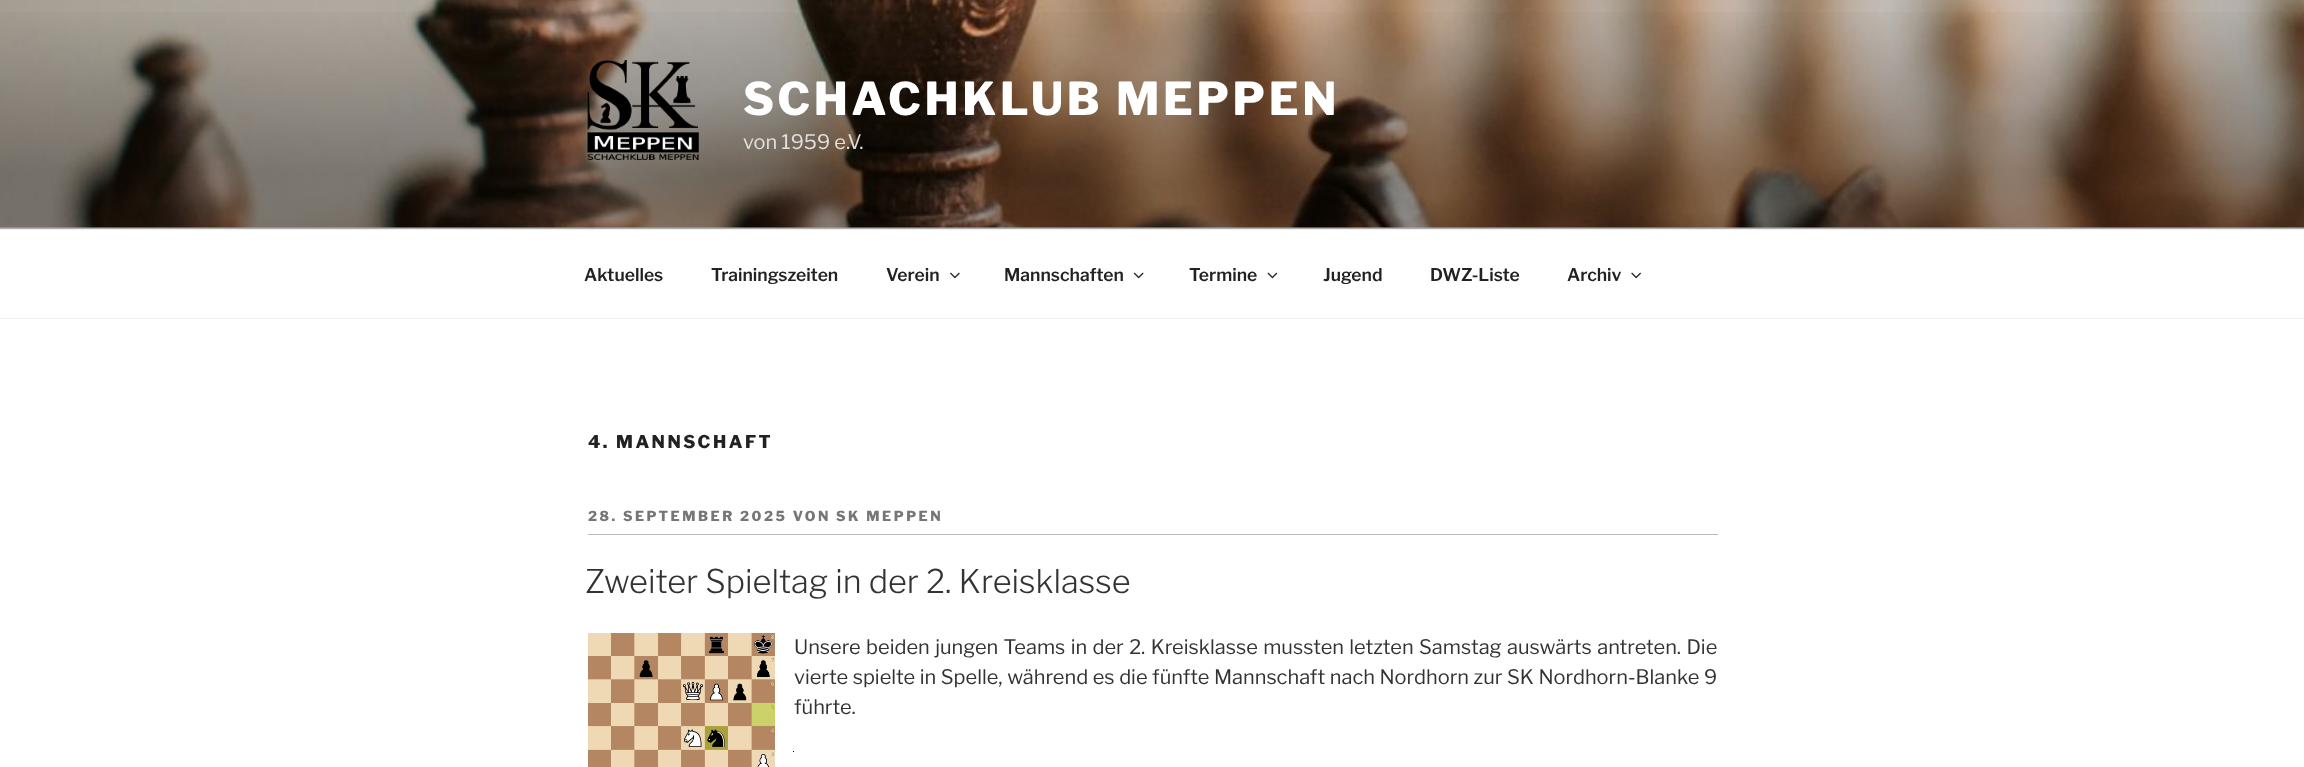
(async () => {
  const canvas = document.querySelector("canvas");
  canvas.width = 2304;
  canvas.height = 767;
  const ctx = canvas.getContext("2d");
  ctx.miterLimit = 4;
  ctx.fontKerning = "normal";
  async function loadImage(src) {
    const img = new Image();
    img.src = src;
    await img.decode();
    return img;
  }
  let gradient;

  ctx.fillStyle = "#ffffff";
  ctx.fillRect(0, 0, 2304, 767);
  ctx.fillStyle = "#fafafa";
  ctx.fillRect(0, 227, 2304, 2);
  ctx.drawImage(await loadImage("img/1.png"), 0, 0, 2304, 228);
  gradient = ctx.createLinearGradient(1153, 0, 1153, 229);
  gradient.addColorStop(0, "rgba(0, 0, 0, 0)");
  gradient.addColorStop(0.75, "rgba(0, 0, 0, 0.3)");
  gradient.addColorStop(1, "rgba(0, 0, 0, 0.3)");
  ctx.fillStyle = gradient;
  ctx.fillRect(0, 12, 2304, 217);
  ctx.drawImage(await loadImage("img/2.png"), 587, 60, 112, 100);
  ctx.fillStyle = "#eeeeee";
  ctx.fillRect(0, 229, 2304, 1);
  ctx.fillRect(0, 318, 2304, 1);
  ctx.drawImage(await loadImage("img/3.png"), 950, 272, 10, 7);
  ctx.drawImage(await loadImage("img/4.png"), 1133, 272, 11, 7);
  ctx.drawImage(await loadImage("img/5.png"), 1267, 272, 11, 7);
  ctx.drawImage(await loadImage("img/6.png"), 1631, 272, 10, 7);
  ctx.fillStyle = "#bbbbbb";
  ctx.fillRect(588, 534, 1130, 1);
  ctx.drawImage(await loadImage("img/7.png"), 588, 633, 187, 134);
  ctx.fillStyle = "#0f0f0f";
  ctx.fillRect(793, 751, 1, 1);
  ctx.letterSpacing = "3.6px";
  ctx.font = "100 45px Libre Franklin";
  ctx.fillStyle = "#ffffff";
  ctx.fillText("SCHACHKLUB MEPPEN", 743, 115);
  ctx.letterSpacing = "0px";
  ctx.font = "100 20px 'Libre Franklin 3'";
  ctx.fillStyle = "#e2dfdc";
  ctx.fillText("von 1959 e.V.", 743, 149);
  ctx.font = "100 17.5px 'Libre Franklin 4'";
  ctx.fillStyle = "#222222";
  for (const [text, x, y] of [
    ["Aktuelles", 584, 281],
    ["Trainingszeiten", 711, 281],
    ["Verein", 886, 281],
    ["Mannschaften", 1004, 281],
    ["Termine", 1189, 281],
    ["Jugend", 1323, 281],
    ["DWZ-Liste", 1430, 281],
    ["Archiv", 1567, 281],
  ]) {
    ctx.fillText(text, x, y);
  }
  ctx.letterSpacing = "2.5px";
  ctx.font = "100 17.5px Libre Franklin";
  ctx.fillText("4. MANNSCHAFT", 588, 448);
  ctx.font = "100 13.75px Libre Franklin";
  ctx.fillStyle = "#767676";
  ctx.fillText("28. SEPTEMBER 2025 VON SK MEPPEN", 588, 521);
  ctx.letterSpacing = "0px";
  ctx.font = "100 32.5px 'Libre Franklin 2'";
  ctx.fillStyle = "#333333";
  ctx.fillText("Zweiter Spieltag in der 2. Kreisklasse", 585, 593);
  ctx.wordSpacing = "1.1px";
  ctx.font = "100 20px 'Libre Franklin 3'";
  ctx.fillText("Unsere beiden jungen Teams in der 2. Kreisklasse mussten letzten Samstag auswärts antreten. Die", 794, 654);
  ctx.wordSpacing = "0.3px";
  ctx.fillText("vierte spielte in Spelle, während es die fünfte Mannschaft nach Nordhorn zur SK Nordhorn-Blanke 9", 794, 684);
  ctx.wordSpacing = "0px";
  ctx.fillText("führte.", 794, 714);
})();
